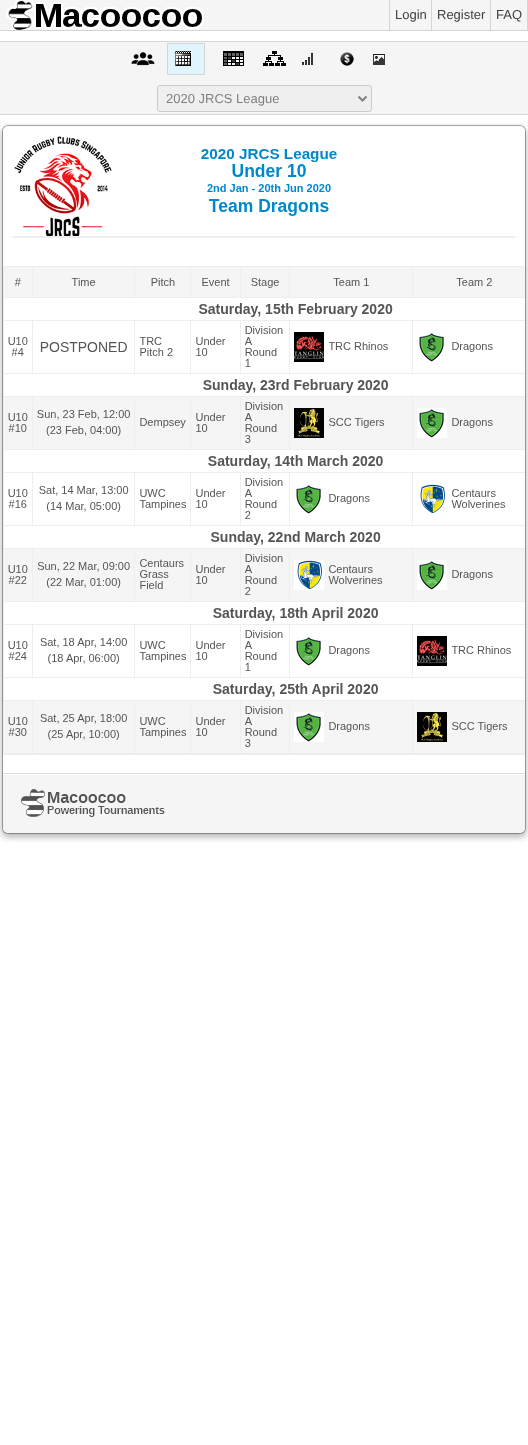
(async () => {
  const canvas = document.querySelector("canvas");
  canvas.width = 528;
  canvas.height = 1445;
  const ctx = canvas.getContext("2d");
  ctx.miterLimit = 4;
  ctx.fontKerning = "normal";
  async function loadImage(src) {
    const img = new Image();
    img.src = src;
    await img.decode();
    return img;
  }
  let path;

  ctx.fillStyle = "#ffffff";
  ctx.fillRect(0, 0, 528, 1445);
  ctx.fillStyle = "#f5f5f5";
  ctx.fillRect(0, 0, 527, 30);
  ctx.fillStyle = "#d5d5d5";
  ctx.fillRect(0, 30, 528, 1);
  ctx.drawImage(await loadImage("img/1.png"), 6, 0, 198, 30);
  for (const [x, y, w, h, color] of [
    [431, 0, 1, 30, "#d5d5d5"],
    [389, 0, 1, 30, "#d5d5d5"],
    [490, 0, 1, 30, "#d5d5d5"],
    [527, 0, 1, 30, "#d5d5d5"],
    [0, 42, 528, 72, "#f5f5f5"],
    [0, 41, 528, 1, "#d5d5d5"],
    [0, 114, 528, 1, "#d5d5d5"],
  ]) {
    ctx.fillStyle = color;
    ctx.fillRect(x, y, w, h);
  }
  ctx.drawImage(await loadImage("img/2.png"), 131, 52, 24, 14);
  ctx.fillStyle = "#e1f5fe";
  ctx.beginPath();
  ctx.rect(167.5, 43.5, 37, 31);
  ctx.fill();
  ctx.strokeStyle = "#d5d5d5";
  ctx.stroke();
  ctx.drawImage(await loadImage("img/3.png"), 175, 51, 16, 15);
  ctx.drawImage(await loadImage("img/4.png"), 223, 51, 21, 15);
  ctx.drawImage(await loadImage("img/5.png"), 263, 51, 23, 15);
  ctx.drawImage(await loadImage("img/6.png"), 302, 53, 11, 12);
  ctx.drawImage(await loadImage("img/7.png"), 340, 52, 14, 14);
  ctx.drawImage(await loadImage("img/8.png"), 373, 54, 12, 11);
  ctx.fillStyle = "#efefef";
  ctx.beginPath();
  ctx.roundRect(157.5, 85.5, 214, 26, 2.5);
  ctx.fill();
  ctx.strokeStyle = "#cccccc";
  ctx.stroke();
  path = new Path2D("M358.5 96.5L362.5 100.5L366.5 96.5");
  ctx.strokeStyle = "#808080";
  ctx.lineWidth = 2;
  ctx.stroke(path);
  ctx.drawImage(await loadImage("img/9.png"), 0, 123, 528, 719);
  ctx.font = "13px Liberation Sans";
  ctx.fillStyle = "#404040";
  for (const [text, x, y] of [
    ["Login", 395, 19],
    ["Register", 437, 19],
    ["FAQ", 496, 19],
  ]) {
    ctx.fillText(text, x, y);
  }
  ctx.fillStyle = "#808080";
  ctx.fillText("2020 JRCS League", 166, 103);
})();
